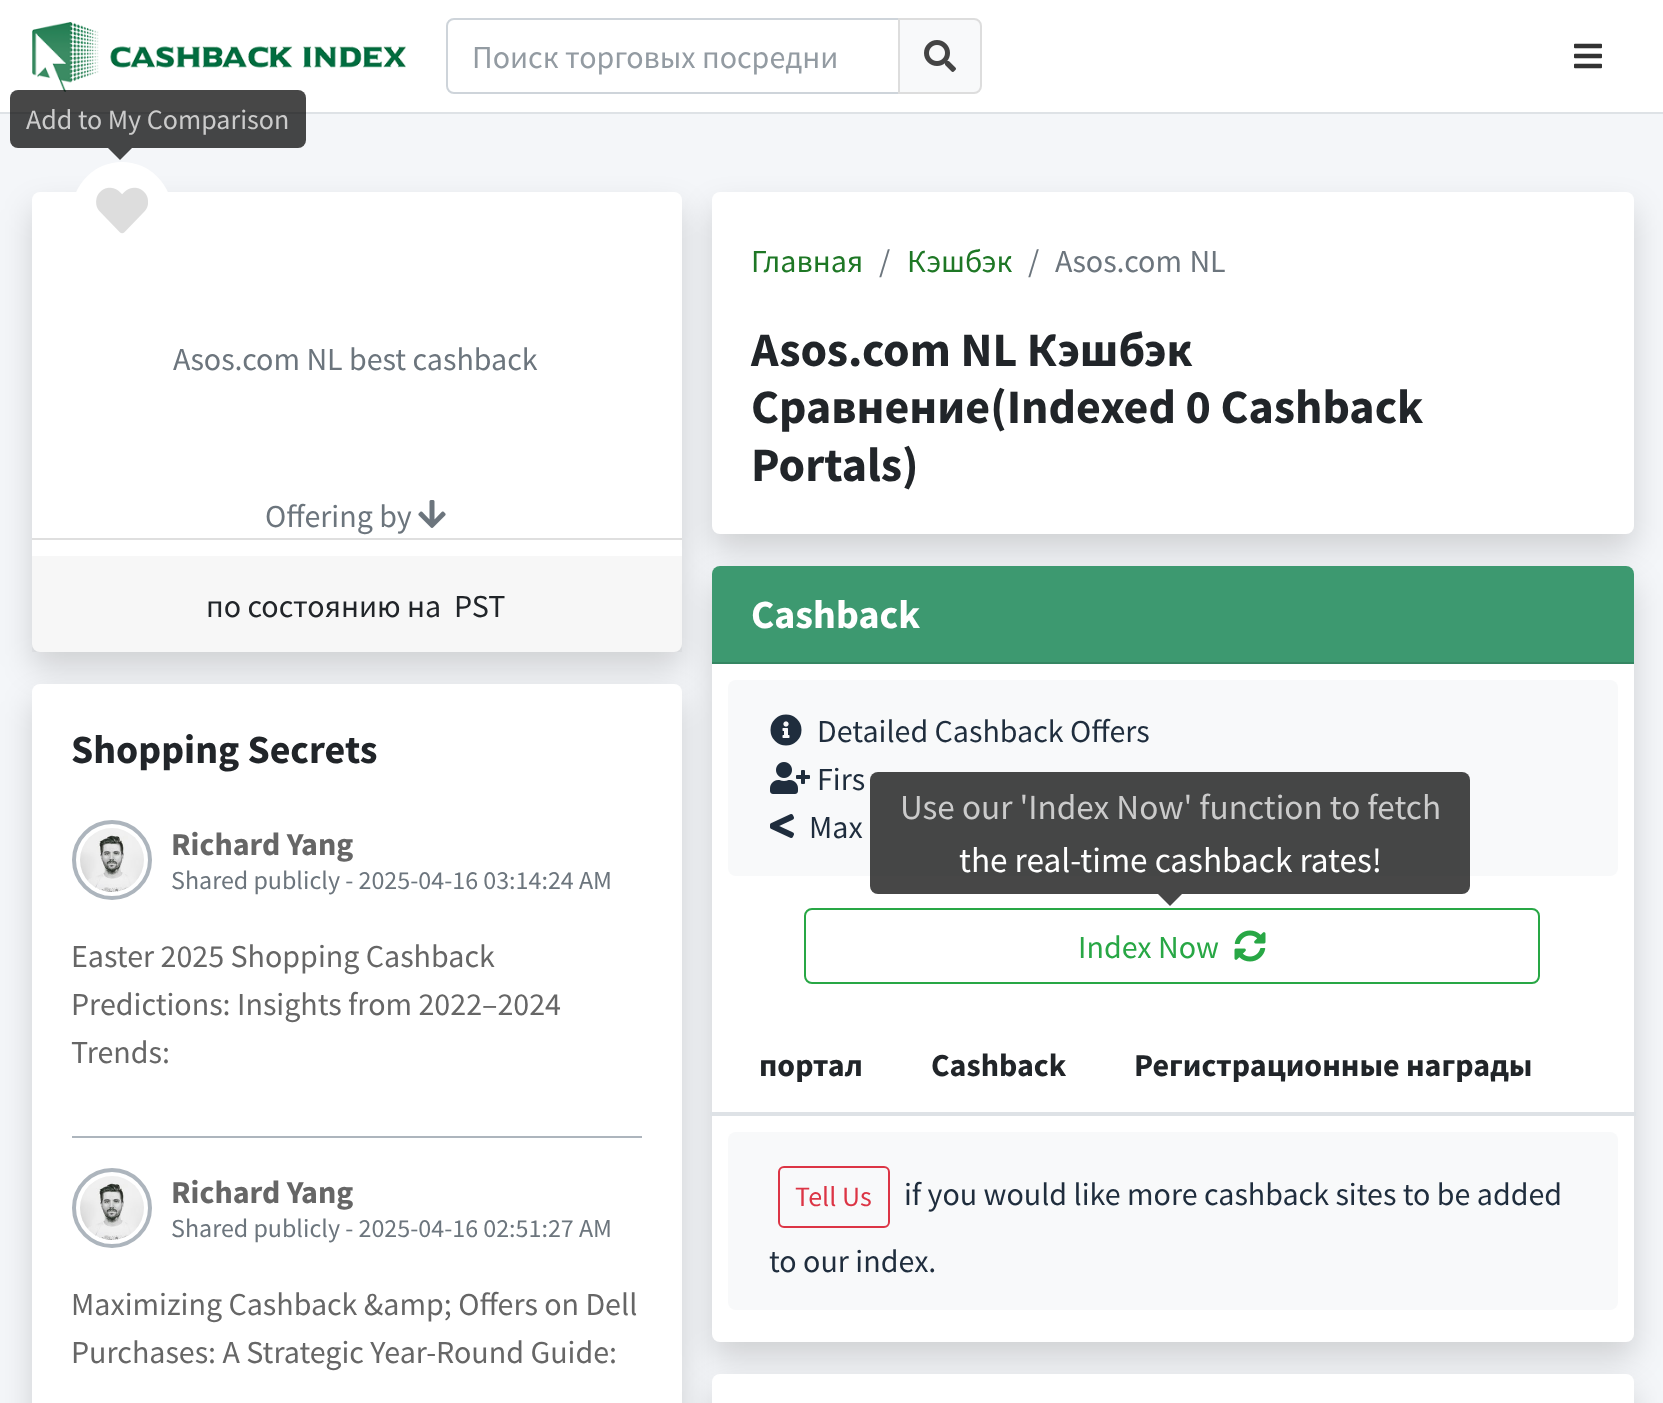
(async () => {
  const canvas = document.querySelector("canvas");
  canvas.width = 1663;
  canvas.height = 1403;
  const ctx = canvas.getContext("2d");
  ctx.miterLimit = 4;
  ctx.fontKerning = "normal";
  async function loadImage(src) {
    const img = new Image();
    img.src = src;
    await img.decode();
    return img;
  }
  let path;

  ctx.fillStyle = "#ffffff";
  ctx.fillRect(0, 0, 1663, 1403);
  ctx.fillStyle = "#dee2e6";
  ctx.fillRect(0, 112, 1663, 2);
  ctx.drawImage(await loadImage("img/1.png"), 32, 22, 374, 70);
  ctx.beginPath();
  ctx.roundRect(447, 19, 452, 74, [7, 0, 0, 7]);
  ctx.strokeStyle = "#ced4da";
  ctx.lineWidth = 2;
  ctx.stroke();
  ctx.fillStyle = "#f8f9fa";
  ctx.beginPath();
  ctx.roundRect(899, 19, 82, 74, [0, 7, 7, 0]);
  ctx.fill();
  ctx.strokeStyle = "#dddddd";
  ctx.stroke();
  ctx.drawImage(await loadImage("img/2.png"), 924, 40, 32, 32);
  ctx.drawImage(await loadImage("img/3.png"), 1574, 43, 28, 26);
  ctx.fillStyle = "#f4f6f9";
  ctx.fillRect(0, 114, 1663, 1289);
  ctx.fillStyle = "rgba(0, 0, 0, 0.15)";
  ctx.filter = "blur(16px)";
  ctx.beginPath();
  ctx.roundRect(32, 208, 650, 460, 8);
  ctx.fill();
  ctx.filter = "none";
  ctx.fillStyle = "#ffffff";
  ctx.beginPath();
  ctx.roundRect(32, 192, 650, 460, 8);
  ctx.fill();
  ctx.beginPath();
  ctx.arc(122, 212, 50, 0, Math.PI * 2);
  ctx.fill();
  ctx.drawImage(await loadImage("img/4.png"), 96, 187, 52, 47);
  ctx.fillStyle = "#dfdfdf";
  ctx.fillRect(32, 538, 650, 2);
  ctx.drawImage(await loadImage("img/5.png"), 418, 500, 28, 28);
  ctx.fillStyle = "rgba(0, 0, 0, 0.03)";
  ctx.fillRect(32, 556, 650, 96);
  ctx.fillStyle = "rgba(0, 0, 0, 0.15)";
  ctx.filter = "blur(16px)";
  ctx.beginPath();
  ctx.roundRect(32, 700, 650, 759, 8);
  ctx.fill();
  ctx.filter = "none";
  ctx.fillStyle = "#ffffff";
  ctx.beginPath();
  ctx.roundRect(32, 684, 650, 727, 8);
  ctx.fill();
  ctx.fillStyle = "#adb5bd";
  ctx.fillRect(72, 1136, 570, 2);
  ctx.beginPath();
  ctx.arc(112, 860, 38, 0, Math.PI * 2);
  ctx.strokeStyle = "#adb5bd";
  ctx.lineWidth = 4;
  ctx.stroke();
  ctx.drawImage(await loadImage("img/6.png"), 80, 828, 64, 64);
  ctx.beginPath();
  ctx.arc(112, 1208, 38, 0, Math.PI * 2);
  ctx.stroke();
  ctx.drawImage(await loadImage("img/6.png"), 80, 1176, 64, 64);
  ctx.fillStyle = "rgba(0, 0, 0, 0.15)";
  ctx.filter = "blur(16px)";
  ctx.beginPath();
  ctx.roundRect(712, 208, 922, 342, 8);
  ctx.fill();
  ctx.filter = "none";
  ctx.fillStyle = "#ffffff";
  ctx.beginPath();
  ctx.roundRect(712, 192, 922, 342, 8);
  ctx.fill();
  ctx.fillStyle = "rgba(0, 0, 0, 0.15)";
  ctx.filter = "blur(16px)";
  ctx.beginPath();
  ctx.roundRect(712, 582, 922, 776, 8);
  ctx.fill();
  ctx.filter = "none";
  ctx.fillStyle = "#ffffff";
  ctx.beginPath();
  ctx.roundRect(712, 566, 922, 776, 8);
  ctx.fill();
  ctx.fillStyle = "#3d9970";
  ctx.beginPath();
  ctx.roundRect(712, 566, 922, 98, [8, 8, 0, 0]);
  ctx.fill();
  ctx.fillStyle = "#358662";
  ctx.fillRect(712, 662, 922, 2);
  ctx.fillStyle = "#f8f9fa";
  ctx.beginPath();
  ctx.roundRect(728, 680, 890, 196, 8);
  ctx.fill();
  ctx.drawImage(await loadImage("img/7.png"), 770, 714, 32, 32);
  ctx.drawImage(await loadImage("img/8.png"), 770, 762, 40, 32);
  ctx.drawImage(await loadImage("img/9.png"), 770, 814, 24, 24);
  ctx.beginPath();
  ctx.roundRect(805, 909, 734, 74, 7);
  ctx.strokeStyle = "#28a745";
  ctx.lineWidth = 2;
  ctx.stroke();
  ctx.drawImage(await loadImage("img/10.png"), 1234, 930, 32, 32);
  ctx.fillStyle = "#dee2e6";
  ctx.fillRect(710, 1112, 926, 4);
  ctx.fillStyle = "#f8f9fa";
  ctx.beginPath();
  ctx.roundRect(728, 1132, 890, 178, 8);
  ctx.fill();
  ctx.beginPath();
  ctx.roundRect(779, 1167, 110, 60, 5);
  ctx.strokeStyle = "#dc3545";
  ctx.stroke();
  ctx.fillStyle = "rgba(0, 0, 0, 0.15)";
  ctx.filter = "blur(16px)";
  ctx.beginPath();
  ctx.roundRect(712, 1390, 922, 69, 8);
  ctx.fill();
  ctx.filter = "none";
  ctx.fillStyle = "#ffffff";
  ctx.beginPath();
  ctx.roundRect(712, 1374, 922, 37, 8);
  ctx.fill();
  ctx.fillStyle = "rgba(0, 0, 0, 0.72)";
  ctx.beginPath();
  ctx.roundRect(10, 90, 296, 58, 8);
  ctx.fill();
  ctx.fillStyle = "#444546";
  path = new Path2D("M108 148H132L120 160Z");
  ctx.fill(path);
  ctx.fillStyle = "rgba(0, 0, 0, 0.72)";
  ctx.beginPath();
  ctx.roundRect(870, 772, 600, 122, 8);
  ctx.fill();
  ctx.fillStyle = "#474747";
  path = new Path2D("M1158 894H1182L1170 906Z");
  ctx.fill(path);
  ctx.font = "32px Source Sans Pro";
  ctx.fillStyle = "#939ba2";
  ctx.fillText("Поиск торговых посредни", 472, 68);
  ctx.fillStyle = "#6c757d";
  ctx.fillText("Asos.com NL best cashback", 173, 370);
  ctx.fillText("Offering by", 265, 527);
  ctx.fillStyle = "#212529";
  ctx.fillText("по состоянию на", 206, 617);
  ctx.fillText("PST", 454, 617);
  ctx.font = "bold 40px Source Sans Pro";
  ctx.fillText("Shopping Secrets", 71, 763);
  ctx.font = "bold 32px Source Sans Pro";
  ctx.fillStyle = "#666666";
  ctx.fillText("Richard Yang", 171, 855);
  ctx.font = "26px Source Sans Pro";
  ctx.fillStyle = "#6c757d";
  ctx.fillText("Shared publicly - 2025-04-16 03:14:24 AM", 171, 889);
  ctx.font = "32px Source Sans Pro";
  ctx.fillStyle = "#666666";
  for (const [text, x, y] of [
    ["Easter 2025 Shopping Cashback", 71, 967],
    ["Predictions: Insights from 2022–2024", 71, 1015],
    ["Trends:", 71, 1063],
  ]) {
    ctx.fillText(text, x, y);
  }
  ctx.font = "bold 32px Source Sans Pro";
  ctx.fillText("Richard Yang", 171, 1203);
  ctx.font = "26px Source Sans Pro";
  ctx.fillStyle = "#6c757d";
  ctx.fillText("Shared publicly - 2025-04-16 02:51:27 AM", 171, 1237);
  ctx.font = "32px Source Sans Pro";
  ctx.fillStyle = "#666666";
  ctx.fillText("Maximizing Cashback &amp; Offers on Dell", 71, 1315);
  ctx.fillText("Purchases: A Strategic Year-Round Guide:", 71, 1363);
  ctx.fillStyle = "#1e7725";
  ctx.fillText("Главная", 751, 272);
  ctx.fillStyle = "#6c757d";
  ctx.fillText("/", 879, 272);
  ctx.fillStyle = "#1e7725";
  ctx.fillText("Кэшбэк", 907, 272);
  ctx.fillStyle = "#6c757d";
  ctx.fillText("/", 1028, 272);
  ctx.wordSpacing = "1px";
  ctx.fillText("Asos.com NL", 1055, 272);
  ctx.wordSpacing = "0px";
  ctx.font = "bold 48px Source Sans Pro";
  ctx.fillStyle = "#212529";
  for (const [text, x, y] of [
    ["Asos.com NL Кэшбэк", 751, 366],
    ["Сравнение(Indexed 0 Cashback", 751, 423],
    ["Portals)", 751, 481],
  ]) {
    ctx.fillText(text, x, y);
  }
  ctx.font = "bold 40px Source Sans Pro";
  ctx.fillStyle = "#ffffff";
  ctx.fillText("Cashback", 751, 628);
  ctx.font = "32px Source Sans Pro";
  ctx.fillStyle = "#1f2d3d";
  for (const [text, x, y] of [
    ["Detailed Cashback Offers", 817, 742],
    ["Firs", 817, 790],
    ["Max", 809, 838],
  ]) {
    ctx.fillText(text, x, y);
  }
  ctx.fillStyle = "#28a745";
  ctx.fillText("Index Now", 1078, 958);
  ctx.font = "bold 32px Source Sans Pro";
  ctx.fillStyle = "#212529";
  for (const [text, x, y] of [
    ["портал", 759, 1076],
    ["Cashback", 931, 1076],
    ["Регистрационные награды", 1134, 1076],
  ]) {
    ctx.fillText(text, x, y);
  }
  ctx.font = "28px Source Sans Pro";
  ctx.fillStyle = "#dc3545";
  ctx.fillText("Tell Us", 795, 1206);
  ctx.font = "32px Source Sans Pro";
  ctx.fillStyle = "#1f2d3d";
  ctx.fillText("if you would like more cashback sites to be added", 904, 1205);
  ctx.fillText("to our index.", 769, 1272);
  ctx.font = "28px Source Sans Pro";
  ctx.fillStyle = "#cbcbcb";
  ctx.fillText("Add to My Comparison", 26, 129);
  ctx.font = "35.25px Source Sans Pro";
  ctx.fillText("Use our 'Index Now' function to fetch", 900, 819);
  ctx.fillStyle = "#ffffff";
  ctx.fillText("the real-time cashback rates!", 959, 872);
})();
